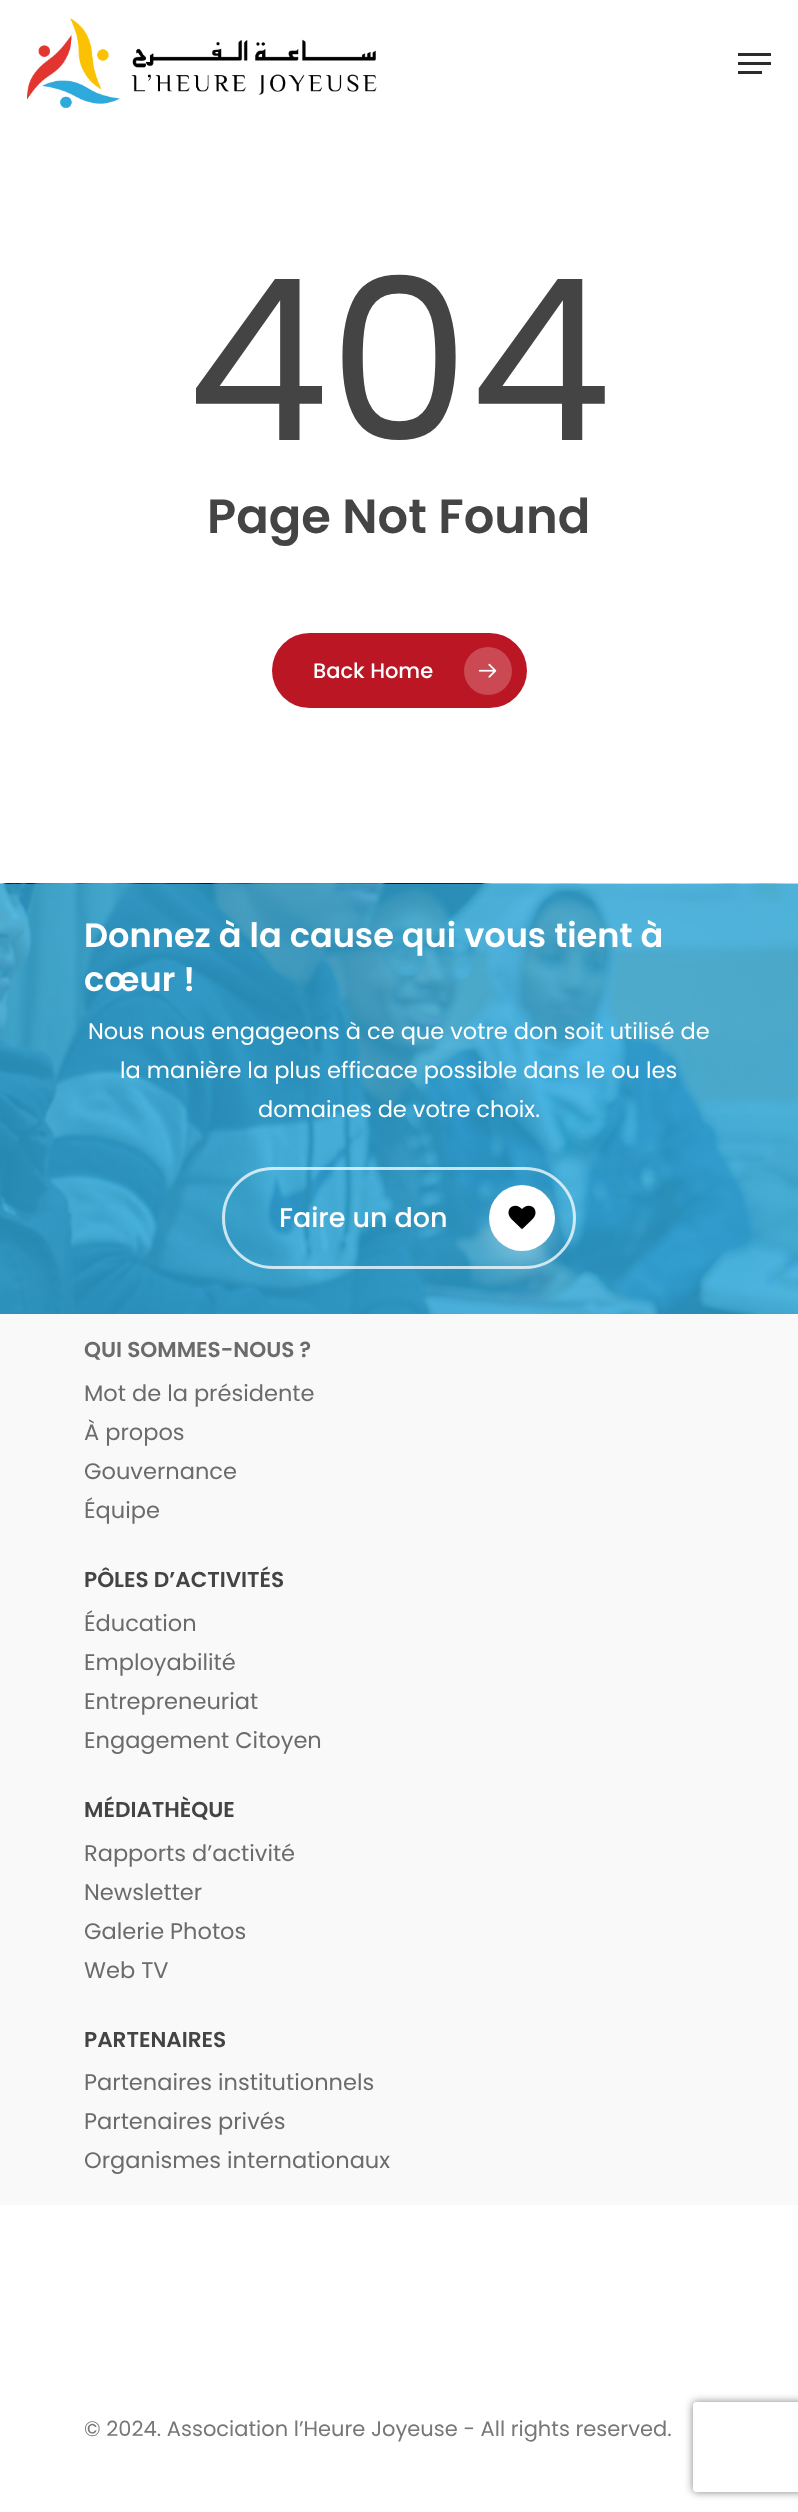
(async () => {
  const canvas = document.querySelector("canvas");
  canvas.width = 798;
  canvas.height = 2512;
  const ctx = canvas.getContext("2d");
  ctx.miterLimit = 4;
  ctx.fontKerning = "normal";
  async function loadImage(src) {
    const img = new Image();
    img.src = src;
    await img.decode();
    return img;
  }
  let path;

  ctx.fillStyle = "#ffffff";
  ctx.fillRect(0, 0, 798, 2512);
  ctx.drawImage(await loadImage("img/1.png"), 27, 18, 350, 90);
  for (const [x, y, w, h, color] of [
    [738, 53, 33, 3, "#2b2b2b"],
    [738, 71, 24, 3, "#2b2b2b"],
    [738, 62, 33, 3, "#2b2b2b"],
  ]) {
    ctx.fillStyle = color;
    ctx.fillRect(x, y, w, h);
  }
  ctx.fillStyle = "#bb1623";
  ctx.beginPath();
  ctx.roundRect(272, 633, 255, 75, 37.5);
  ctx.fill();
  ctx.fillStyle = "#ca4953";
  ctx.beginPath();
  ctx.arc(488, 671, 24, 0, Math.PI * 2);
  ctx.fill();
  ctx.drawImage(await loadImage("img/2.png"), 478, 663, 19, 15);
  ctx.drawImage(await loadImage("img/3.png"), 0, 883, 798, 431);
  ctx.beginPath();
  ctx.roundRect(223.5, 1168.5, 351, 99, 49.5);
  ctx.strokeStyle = "rgba(255, 255, 255, 0.75)";
  ctx.lineWidth = 3;
  ctx.stroke();
  ctx.fillStyle = "rgba(255, 255, 255, 0.24)";
  ctx.filter = "blur(11px)";
  ctx.beginPath();
  ctx.roundRect(489, 1197, 66, 66, 33);
  ctx.fill();
  ctx.filter = "none";
  ctx.fillStyle = "#ffffff";
  ctx.beginPath();
  ctx.arc(522, 1218, 33, 0, Math.PI * 2);
  ctx.fill();
  ctx.drawImage(await loadImage("img/4.png"), 508, 1205, 28, 24);
  ctx.fillStyle = "#f9f9f9";
  ctx.fillRect(0, 1314, 798, 891);
  ctx.save();
  path = new Path2D("M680 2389H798V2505H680ZM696 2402H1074C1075.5 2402 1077 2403.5 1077 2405V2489C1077 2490.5 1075.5 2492 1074 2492H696C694.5 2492 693 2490.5 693 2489V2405C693 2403.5 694.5 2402 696 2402Z");
  ctx.clip(path, "evenodd");
  ctx.fillStyle = "#808080";
  ctx.filter = "blur(4px)";
  ctx.beginPath();
  ctx.roundRect(693, 2402, 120, 90, 3);
  ctx.fill();
  ctx.filter = "none";
  ctx.restore();
  ctx.font = "225px Poppins";
  ctx.fillStyle = "#444444";
  ctx.fillText("404", 187, 440);
  ctx.font = "600 48px Poppins";
  ctx.fillText("Page Not Found", 207, 533);
  ctx.font = "500 21px Poppins";
  ctx.fillStyle = "#ffffff";
  ctx.fillText("Back Home", 313, 678);
  ctx.font = "600 33.6px Poppins";
  ctx.fillText("Donnez à la cause qui vous tient à", 84, 947);
  ctx.fillText("cœur !", 84, 991);
  ctx.font = "22.5px Poppins";
  for (const [text, x, y] of [
    ["Nous nous engageons à ce que votre don soit utilisé de", 88, 1039],
    ["la manière la plus efficace possible dans le ou les", 120, 1078],
    ["domaines de votre choix.", 258, 1117],
  ]) {
    ctx.fillText(text, x, y);
  }
  ctx.font = "500 27px Poppins";
  ctx.fillText("Faire un don", 279, 1227);
  ctx.font = "600 21.6px Poppins";
  ctx.fillStyle = "#6b6b6b";
  ctx.fillText("QUI SOMMES-NOUS ?", 84, 1357);
  ctx.font = "22.5px Poppins";
  for (const [text, x, y] of [
    ["Mot de la présidente", 84, 1401],
    ["À propos", 84, 1440],
    ["Gouvernance", 84, 1479],
    ["Équipe", 84, 1518],
  ]) {
    ctx.fillText(text, x, y);
  }
  ctx.font = "600 21.6px Poppins";
  ctx.fillStyle = "#444444";
  ctx.fillText("PÔLES D’ACTIVITÉS", 84, 1587);
  ctx.font = "22.5px Poppins";
  ctx.fillStyle = "#6b6b6b";
  for (const [text, x, y] of [
    ["Éducation", 84, 1631],
    ["Employabilité", 84, 1670],
    ["Entrepreneuriat", 84, 1709],
    ["Engagement Citoyen", 84, 1748],
  ]) {
    ctx.fillText(text, x, y);
  }
  ctx.font = "600 21.6px Poppins";
  ctx.fillStyle = "#444444";
  ctx.fillText("MÉDIATHÈQUE", 84, 1817);
  ctx.font = "22.5px Poppins";
  ctx.fillStyle = "#6b6b6b";
  for (const [text, x, y] of [
    ["Rapports d’activité", 84, 1861],
    ["Newsletter", 84, 1900],
    ["Galerie Photos", 84, 1939],
    ["Web TV", 84, 1978],
  ]) {
    ctx.fillText(text, x, y);
  }
  ctx.font = "600 21.6px Poppins";
  ctx.fillStyle = "#444444";
  ctx.fillText("PARTENAIRES", 84, 2047);
  ctx.font = "22.5px Poppins";
  ctx.fillStyle = "#6b6b6b";
  for (const [text, x, y] of [
    ["Partenaires institutionnels", 84, 2090],
    ["Partenaires privés", 84, 2129],
    ["Organismes internationaux", 84, 2168],
  ]) {
    ctx.fillText(text, x, y);
  }
  ctx.font = "21px Poppins";
  ctx.fillStyle = "#777777";
  ctx.fillText("© 2024. Association l’Heure Joyeuse - All rights reserved.", 84, 2436);
})();
